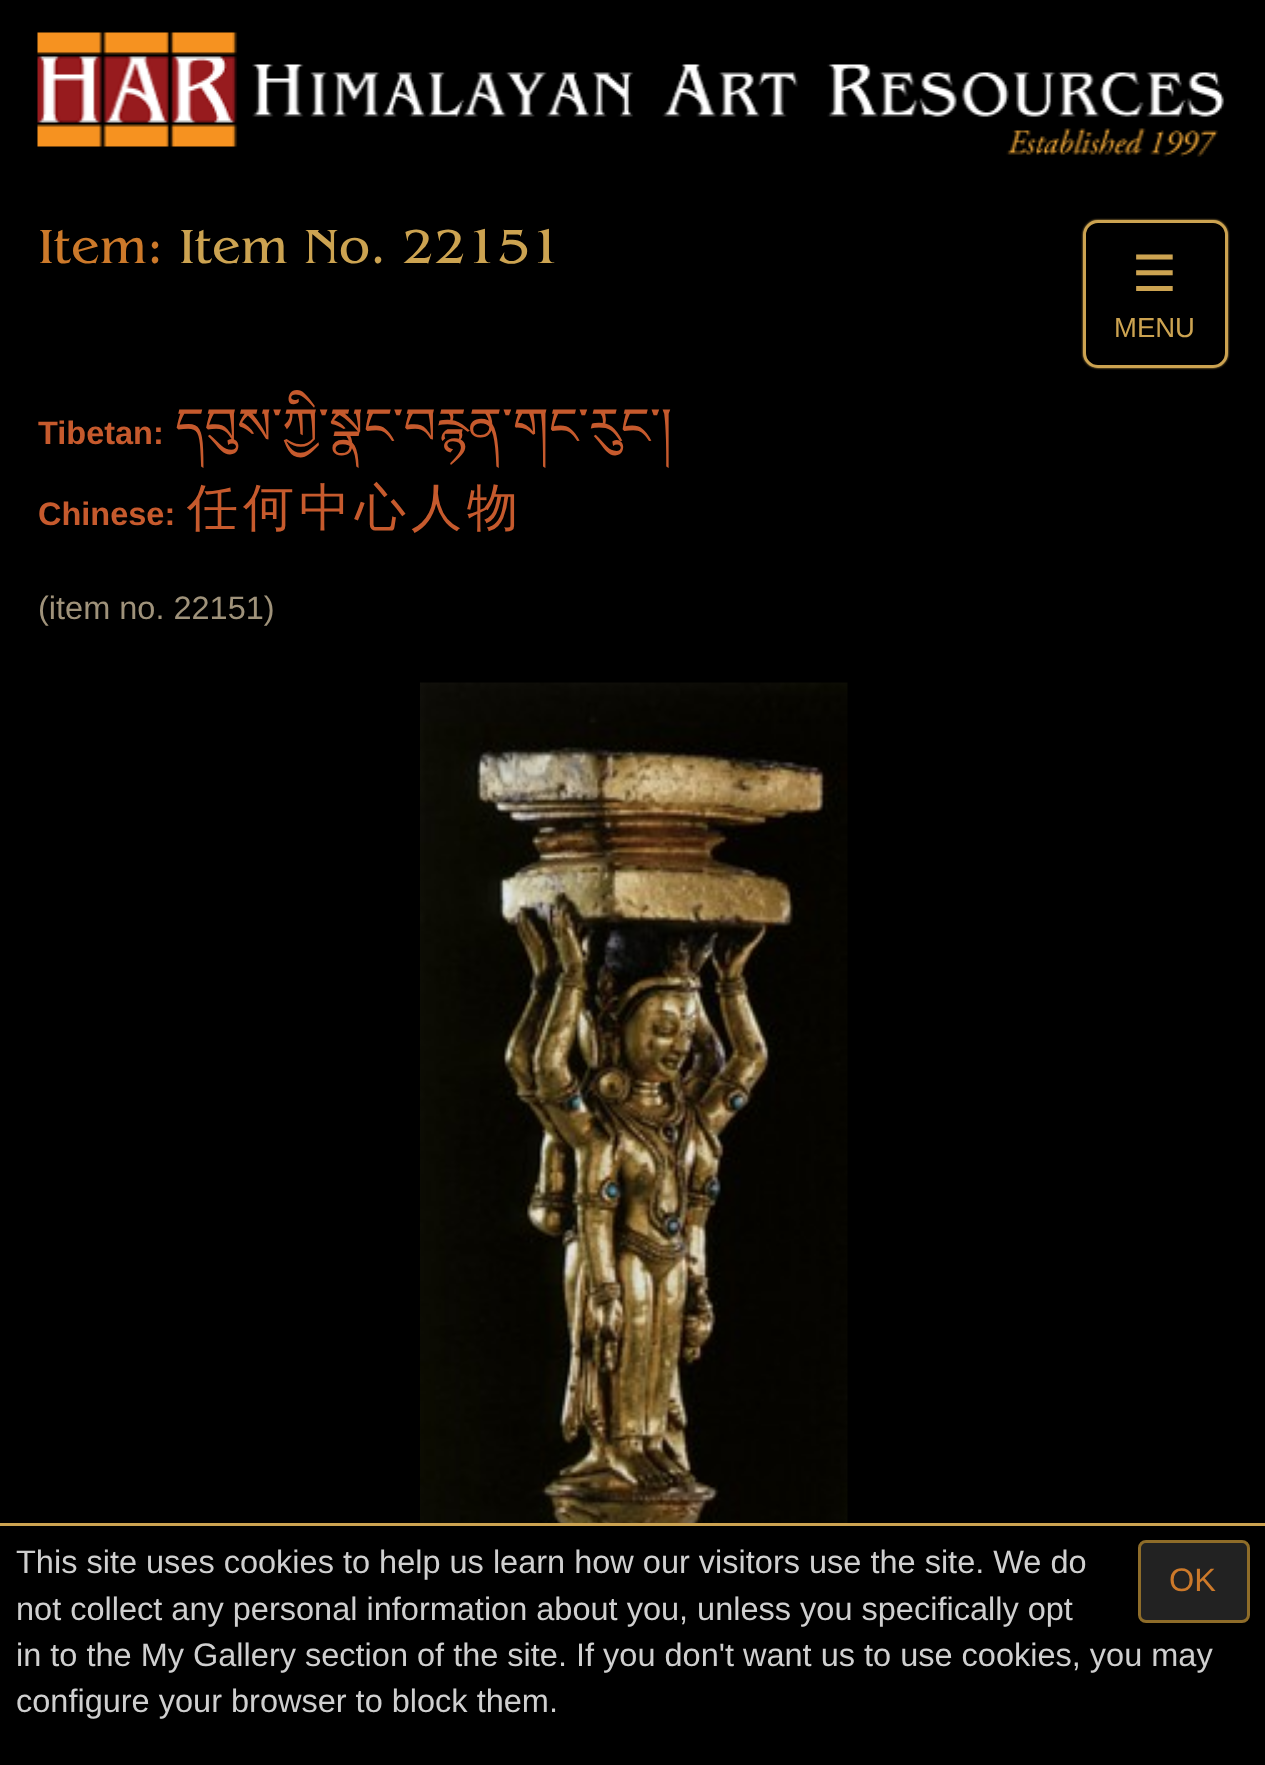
(async () => {
  const canvas = document.querySelector("canvas");
  canvas.width = 1265;
  canvas.height = 1765;
  const ctx = canvas.getContext("2d");
  ctx.miterLimit = 4;
  ctx.fontKerning = "normal";
  async function loadImage(src) {
    const img = new Image();
    img.src = src;
    await img.decode();
    return img;
  }

  ctx.fillStyle = "#000000";
  ctx.fillRect(0, 0, 1265, 1765);
  ctx.drawImage(await loadImage("img/1.png"), 37, 32, 1188, 125);
  ctx.fillStyle = "#cca351";
  ctx.filter = "blur(1px)";
  ctx.beginPath();
  ctx.roundRect(1083, 220, 145, 148, 15);
  ctx.fill();
  ctx.filter = "none";
  ctx.fillStyle = "#000000";
  ctx.beginPath();
  ctx.roundRect(1084.5, 221.5, 142, 145, 13.5);
  ctx.fill();
  ctx.strokeStyle = "#cca351";
  ctx.lineWidth = 3;
  ctx.stroke();
  ctx.drawImage(await loadImage("img/2.png"), 420, 682, 428, 841);
  ctx.fillStyle = "#cca351";
  ctx.fillRect(0, 1523, 1265, 3);
  ctx.fillStyle = "#222222";
  ctx.beginPath();
  ctx.roundRect(1139.5, 1541.5, 109, 80, 6.5);
  ctx.fill();
  ctx.strokeStyle = "#8e6c29";
  ctx.stroke();
  ctx.font = "50px 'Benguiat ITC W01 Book'";
  ctx.fillStyle = "#cc792a";
  ctx.fillText("Item:", 38, 263);
  ctx.fillStyle = "#cca351";
  ctx.fillText("Item No. 22151", 179, 263);
  ctx.font = "50px DejaVu Sans";
  ctx.fillText("☰", 1132, 291);
  ctx.font = "27.5px Liberation Sans";
  ctx.fillText("MENU", 1114, 337);
  ctx.font = "bold 32.5px Liberation Sans";
  ctx.fillStyle = "#c65a2d";
  ctx.fillText("Tibetan:", 38, 444);
  ctx.font = "51px Noto Serif Tibetan";
  ctx.fillText("དབུས་ཀྱི་སྣང་བརྙན་གང་རུང་།", 175, 444);
  ctx.font = "bold 32.5px Liberation Sans";
  ctx.fillText("Chinese:", 38, 525);
  ctx.letterSpacing = "5px";
  ctx.font = "500 51px WenQuanYi Zen Hei";
  ctx.fillText("任何中心人物", 187, 525);
  ctx.letterSpacing = "0px";
  ctx.font = "32.5px Liberation Sans";
  ctx.fillStyle = "#9f927a";
  ctx.fillText("(item no. 22151)", 38, 619);
  ctx.fillStyle = "#cfcfcf";
  for (const [text, x, y] of [
    ["This site uses cookies to help us learn how our visitors use the site. We do", 16, 1573],
    ["not collect any personal information about you, unless you specifically opt", 16, 1620],
    ["in to the My Gallery section of the site. If you don't want us to use cookies, you may", 16, 1666],
    ["configure your browser to block them.", 16, 1712],
  ]) {
    ctx.fillText(text, x, y);
  }
  ctx.fillStyle = "#cc792a";
  ctx.fillText("OK", 1169, 1591);
})();
